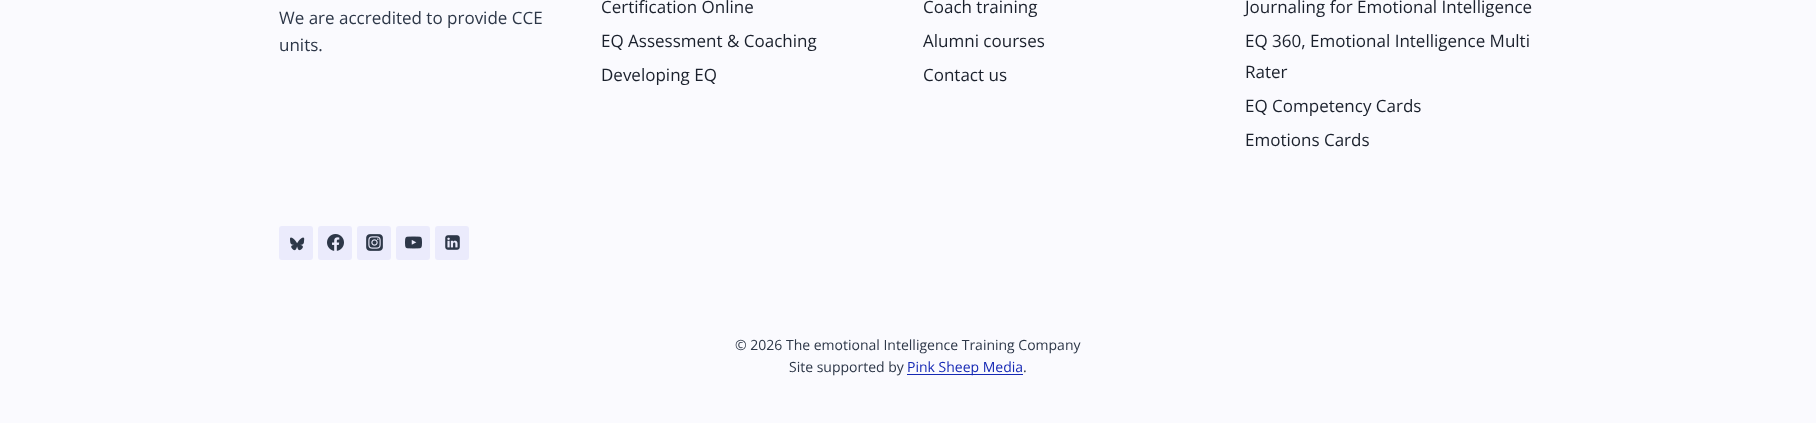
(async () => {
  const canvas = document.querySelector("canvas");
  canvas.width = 1816;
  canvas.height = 423;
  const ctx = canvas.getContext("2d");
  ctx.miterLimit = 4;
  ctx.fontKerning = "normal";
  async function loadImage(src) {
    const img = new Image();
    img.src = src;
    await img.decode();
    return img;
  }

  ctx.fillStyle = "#fafafe";
  ctx.fillRect(0, 0, 1816, 423);
  ctx.fillStyle = "#ebebfc";
  ctx.beginPath();
  ctx.roundRect(279, 226, 34, 34, 3);
  ctx.fill();
  ctx.drawImage(await loadImage("img/1.png"), 290, 237, 15, 14);
  ctx.beginPath();
  ctx.roundRect(318, 226, 34, 34, 3);
  ctx.fill();
  ctx.drawImage(await loadImage("img/2.png"), 327, 234, 17, 17);
  ctx.beginPath();
  ctx.roundRect(357, 226, 34, 34, 3);
  ctx.fill();
  ctx.drawImage(await loadImage("img/3.png"), 366, 234, 17, 17);
  ctx.beginPath();
  ctx.roundRect(396, 226, 34, 34, 3);
  ctx.fill();
  ctx.drawImage(await loadImage("img/4.png"), 405, 236, 17, 13);
  ctx.beginPath();
  ctx.roundRect(435, 226, 34, 34, 3);
  ctx.fill();
  ctx.drawImage(await loadImage("img/5.png"), 445, 235, 15, 15);
  ctx.fillStyle = "#1629b4";
  ctx.fillRect(907, 374, 116, 1);
  ctx.font = "17px Open Sans";
  ctx.fillStyle = "#2d3748";
  ctx.fillText("We are accredited to provide CCE", 279, 24);
  ctx.fillText("units.", 279, 51);
  ctx.fillStyle = "#1a202c";
  for (const [text, x, y] of [
    ["Certification Online", 601, 13],
    ["EQ Assessment & Coaching", 601, 47],
    ["Developing EQ", 601, 81],
    ["Coach training", 923, 13],
    ["Alumni courses", 923, 47],
    ["Contact us", 923, 81],
    ["Journaling for Emotional Intelligence", 1245, 13],
    ["EQ 360, Emotional Intelligence Multi", 1245, 47],
    ["Rater", 1245, 78],
    ["EQ Competency Cards", 1245, 112],
    ["Emotions Cards", 1245, 146],
  ]) {
    ctx.fillText(text, x, y);
  }
  ctx.font = "14px Open Sans";
  ctx.fillStyle = "#2d3748";
  ctx.fillText("© 2026 The emotional Intelligence Training Company", 735, 350);
  ctx.fillText("Site supported by", 789, 372);
  ctx.fillStyle = "#1629b4";
  ctx.fillText("Pink Sheep Media", 907, 372);
  ctx.fillStyle = "#2d3748";
  ctx.fillText(".", 1023, 372);
})();
